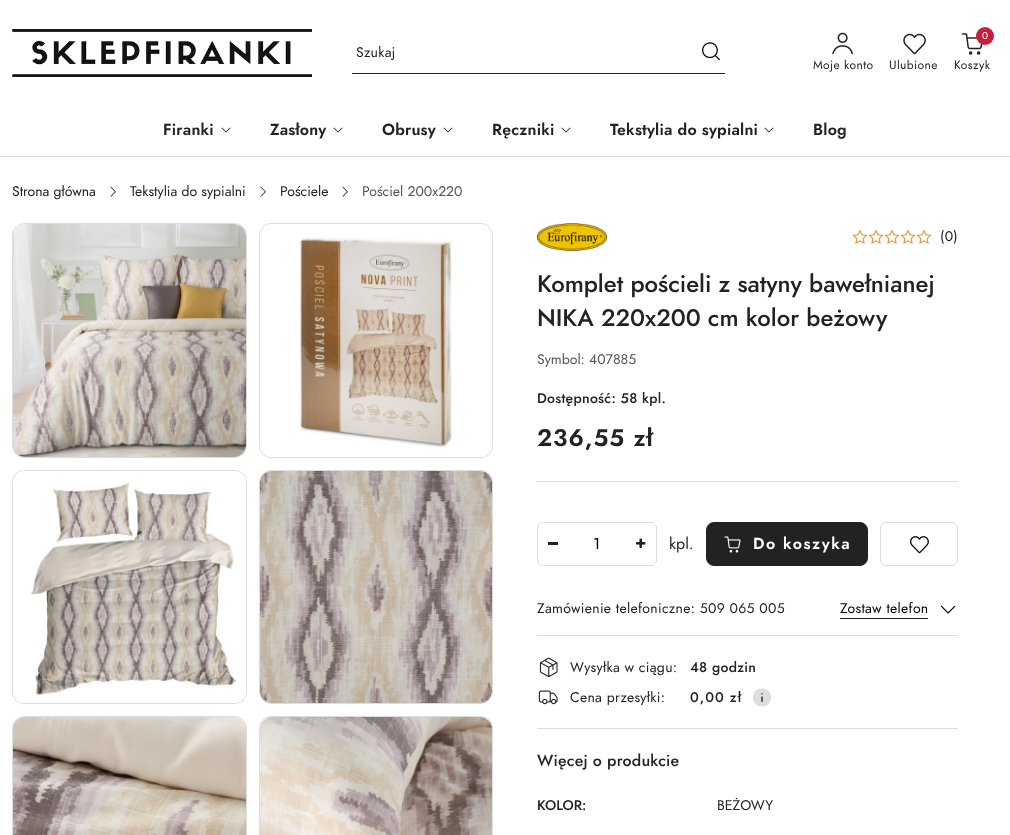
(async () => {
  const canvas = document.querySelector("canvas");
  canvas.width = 1010;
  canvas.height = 835;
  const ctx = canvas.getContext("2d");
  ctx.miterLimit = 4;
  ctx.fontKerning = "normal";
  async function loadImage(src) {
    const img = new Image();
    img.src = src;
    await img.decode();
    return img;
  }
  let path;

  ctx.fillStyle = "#ffffff";
  ctx.fillRect(0, 0, 1010, 835);
  ctx.drawImage(await loadImage("img/1.png"), 12, 29, 300, 48);
  ctx.fillStyle = "#222222";
  ctx.fillRect(352, 73, 373, 1);
  ctx.drawImage(await loadImage("img/2.png"), 702, 42, 18, 19);
  ctx.drawImage(await loadImage("img/3.png"), 832, 32, 21, 23);
  ctx.drawImage(await loadImage("img/4.png"), 903, 33, 23, 22);
  ctx.drawImage(await loadImage("img/5.png"), 961, 33, 22, 22);
  ctx.fillStyle = "#c5203d";
  ctx.beginPath();
  ctx.arc(985, 36, 9, 0, Math.PI * 2);
  ctx.fill();
  ctx.fillStyle = "#dddddd";
  ctx.fillRect(0, 156, 1010, 1);
  ctx.drawImage(await loadImage("img/6.png"), 221, 127, 10, 6);
  ctx.drawImage(await loadImage("img/6.png"), 333, 127, 10, 6);
  ctx.drawImage(await loadImage("img/6.png"), 443, 127, 10, 6);
  ctx.drawImage(await loadImage("img/6.png"), 561, 127, 10, 6);
  ctx.drawImage(await loadImage("img/6.png"), 764, 127, 10, 6);
  ctx.drawImage(await loadImage("img/7.png"), 110, 186, 6, 11);
  ctx.drawImage(await loadImage("img/7.png"), 260, 186, 6, 11);
  ctx.drawImage(await loadImage("img/7.png"), 342, 186, 6, 11);
  ctx.beginPath();
  ctx.roundRect(12.5, 223.5, 234, 234, 11.5);
  ctx.strokeStyle = "#dddddd";
  ctx.stroke();
  ctx.drawImage(await loadImage("img/8.png"), 13, 224, 233, 233);
  ctx.beginPath();
  ctx.roundRect(259.5, 223.5, 233, 234, 11.5);
  ctx.stroke();
  ctx.drawImage(await loadImage("img/9.png"), 260, 229, 232, 228);
  ctx.beginPath();
  ctx.roundRect(12.5, 470.5, 234, 233, 11.5);
  ctx.stroke();
  ctx.drawImage(await loadImage("img/10.png"), 13, 476, 233, 227);
  ctx.beginPath();
  ctx.roundRect(259.5, 470.5, 233, 233, 11.5);
  ctx.stroke();
  ctx.drawImage(await loadImage("img/11.png"), 260, 471, 232, 232);
  ctx.beginPath();
  ctx.roundRect(12.5, 716.5, 234, 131, 11.5);
  ctx.stroke();
  ctx.drawImage(await loadImage("img/12.png"), 13, 717, 233, 118);
  ctx.beginPath();
  ctx.roundRect(259.5, 716.5, 233, 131, 11.5);
  ctx.stroke();
  ctx.drawImage(await loadImage("img/13.png"), 260, 717, 232, 118);
  ctx.drawImage(await loadImage("img/14.png"), 537, 223, 70, 28);
  ctx.drawImage(await loadImage("img/15.png"), 852, 229, 16, 15);
  ctx.drawImage(await loadImage("img/15.png"), 868, 229, 16, 15);
  ctx.drawImage(await loadImage("img/15.png"), 884, 229, 16, 15);
  ctx.drawImage(await loadImage("img/15.png"), 900, 229, 16, 15);
  ctx.drawImage(await loadImage("img/15.png"), 916, 229, 16, 15);
  ctx.fillRect(537, 481, 421, 1);
  ctx.beginPath();
  ctx.roundRect(537.5, 522.5, 119, 43, 5.5);
  ctx.stroke();
  ctx.fillStyle = "#222222";
  ctx.fillRect(548, 542, 10, 3);
  ctx.drawImage(await loadImage("img/16.png"), 636, 538, 10, 10);
  ctx.beginPath();
  ctx.roundRect(706.5, 522.5, 161, 43, 7.5);
  ctx.fill();
  ctx.strokeStyle = "#222222";
  ctx.stroke();
  ctx.drawImage(await loadImage("img/17.png"), 724, 536, 17, 17);
  ctx.beginPath();
  ctx.roundRect(880.5, 522.5, 77, 43, 5.5);
  ctx.strokeStyle = "#dddddd";
  ctx.stroke();
  ctx.drawImage(await loadImage("img/18.png"), 910, 536, 19, 18);
  ctx.fillRect(840, 618, 88, 1);
  ctx.drawImage(await loadImage("img/19.png"), 940, 605, 16, 9);
  ctx.fillStyle = "#dddddd";
  ctx.fillRect(537, 635, 421, 1);
  ctx.fillRect(537, 728, 421, 1);
  ctx.drawImage(await loadImage("img/20.png"), 539, 657, 19, 21);
  ctx.drawImage(await loadImage("img/21.png"), 538, 690, 20, 15);
  path = new Path2D("M771 697.5C771 709.5 753 709.5 753 697.5C753 685.5 771 685.5 771 697.5Z");
  ctx.fill(path);
  ctx.drawImage(await loadImage("img/22.png"), 761, 693, 2, 9);
  ctx.letterSpacing = "0.3px";
  ctx.font = "14px Jost";
  ctx.fillStyle = "#222222";
  ctx.fillText("Szukaj", 356, 57);
  ctx.letterSpacing = "0.4px";
  ctx.font = "12px Jost";
  ctx.fillText("Moje konto", 813, 69);
  ctx.fillText("Ulubione", 889, 69);
  ctx.letterSpacing = "0px";
  ctx.font = "10px Jost";
  ctx.fillStyle = "#ffffff";
  ctx.fillText("0", 982, 39);
  ctx.letterSpacing = "0.4px";
  ctx.font = "12px Jost";
  ctx.fillStyle = "#222222";
  ctx.fillText("Koszyk", 954, 69);
  ctx.letterSpacing = "0.2px";
  ctx.font = "600 16px Jost";
  for (const [text, x, y] of [
    ["Firanki", 163, 135],
    ["Zasłony", 270, 135],
    ["Obrusy", 382, 135],
    ["Ręczniki", 492, 135],
    ["Tekstylia do sypialni", 610, 135],
    ["Blog", 813, 135],
  ]) {
    ctx.fillText(text, x, y);
  }
  ctx.letterSpacing = "0px";
  ctx.font = "14px Jost";
  for (const [text, x, y] of [
    ["Strona główna", 12, 196],
    ["Tekstylia do sypialni", 130, 196],
    ["Pościele", 280, 196],
  ]) {
    ctx.fillText(text, x, y);
  }
  ctx.fillStyle = "#555555";
  ctx.fillText("Pościel 200x220", 362, 196);
  ctx.letterSpacing = "0.3px";
  ctx.fillStyle = "#222222";
  ctx.fillText("(0)", 940, 241);
  ctx.letterSpacing = "0px";
  ctx.font = "500 24px Jost";
  ctx.fillText("Komplet pościeli z satyny bawełnianej", 537, 292);
  ctx.fillText("NIKA 220x200 cm kolor beżowy", 537, 326);
  ctx.font = "14px Jost";
  ctx.fillStyle = "#555555";
  ctx.fillText("Symbol: 407885", 537, 364);
  ctx.letterSpacing = "0.3px";
  ctx.font = "500 14px Jost";
  ctx.fillStyle = "#222222";
  ctx.fillText("Dostępność: 58 kpl.", 537, 403);
  ctx.letterSpacing = "1px";
  ctx.font = "600 24px Jost";
  ctx.fillText("236,55 zł", 537, 446);
  ctx.letterSpacing = "0px";
  ctx.font = "16px Jost";
  ctx.fillStyle = "#000000";
  ctx.fillText("1", 593, 549);
  ctx.fillStyle = "#222222";
  ctx.fillText("kpl.", 669, 549);
  ctx.letterSpacing = "1.5px";
  ctx.font = "600 16px Jost";
  ctx.fillStyle = "#ffffff";
  ctx.fillText("Do koszyka", 753, 549);
  ctx.letterSpacing = "0.3px";
  ctx.font = "14px Jost";
  ctx.fillStyle = "#222222";
  ctx.fillText("Zamówienie telefoniczne: 509 065 005", 537, 613);
  ctx.fillStyle = "#000000";
  ctx.fillText("Zostaw telefon", 840, 613);
  ctx.fillStyle = "#222222";
  ctx.fillText("Wysyłka w ciągu:", 570, 672);
  ctx.font = "500 14px Jost";
  ctx.fillText("48 godzin", 690, 672);
  ctx.font = "14px Jost";
  ctx.fillText("Cena przesyłki:", 570, 702);
  ctx.letterSpacing = "1px";
  ctx.font = "500 14px Jost";
  ctx.fillText("0,00 zł", 690, 702);
  ctx.letterSpacing = "0.2px";
  ctx.font = "500 16px Jost";
  ctx.fillText("Więcej o produkcie", 537, 766);
  ctx.letterSpacing = "0px";
  ctx.font = "500 14px Jost";
  ctx.fillText("KOLOR:", 537, 810);
  ctx.font = "14px Jost";
  ctx.fillText("BEŻOWY", 717, 810);
})();
